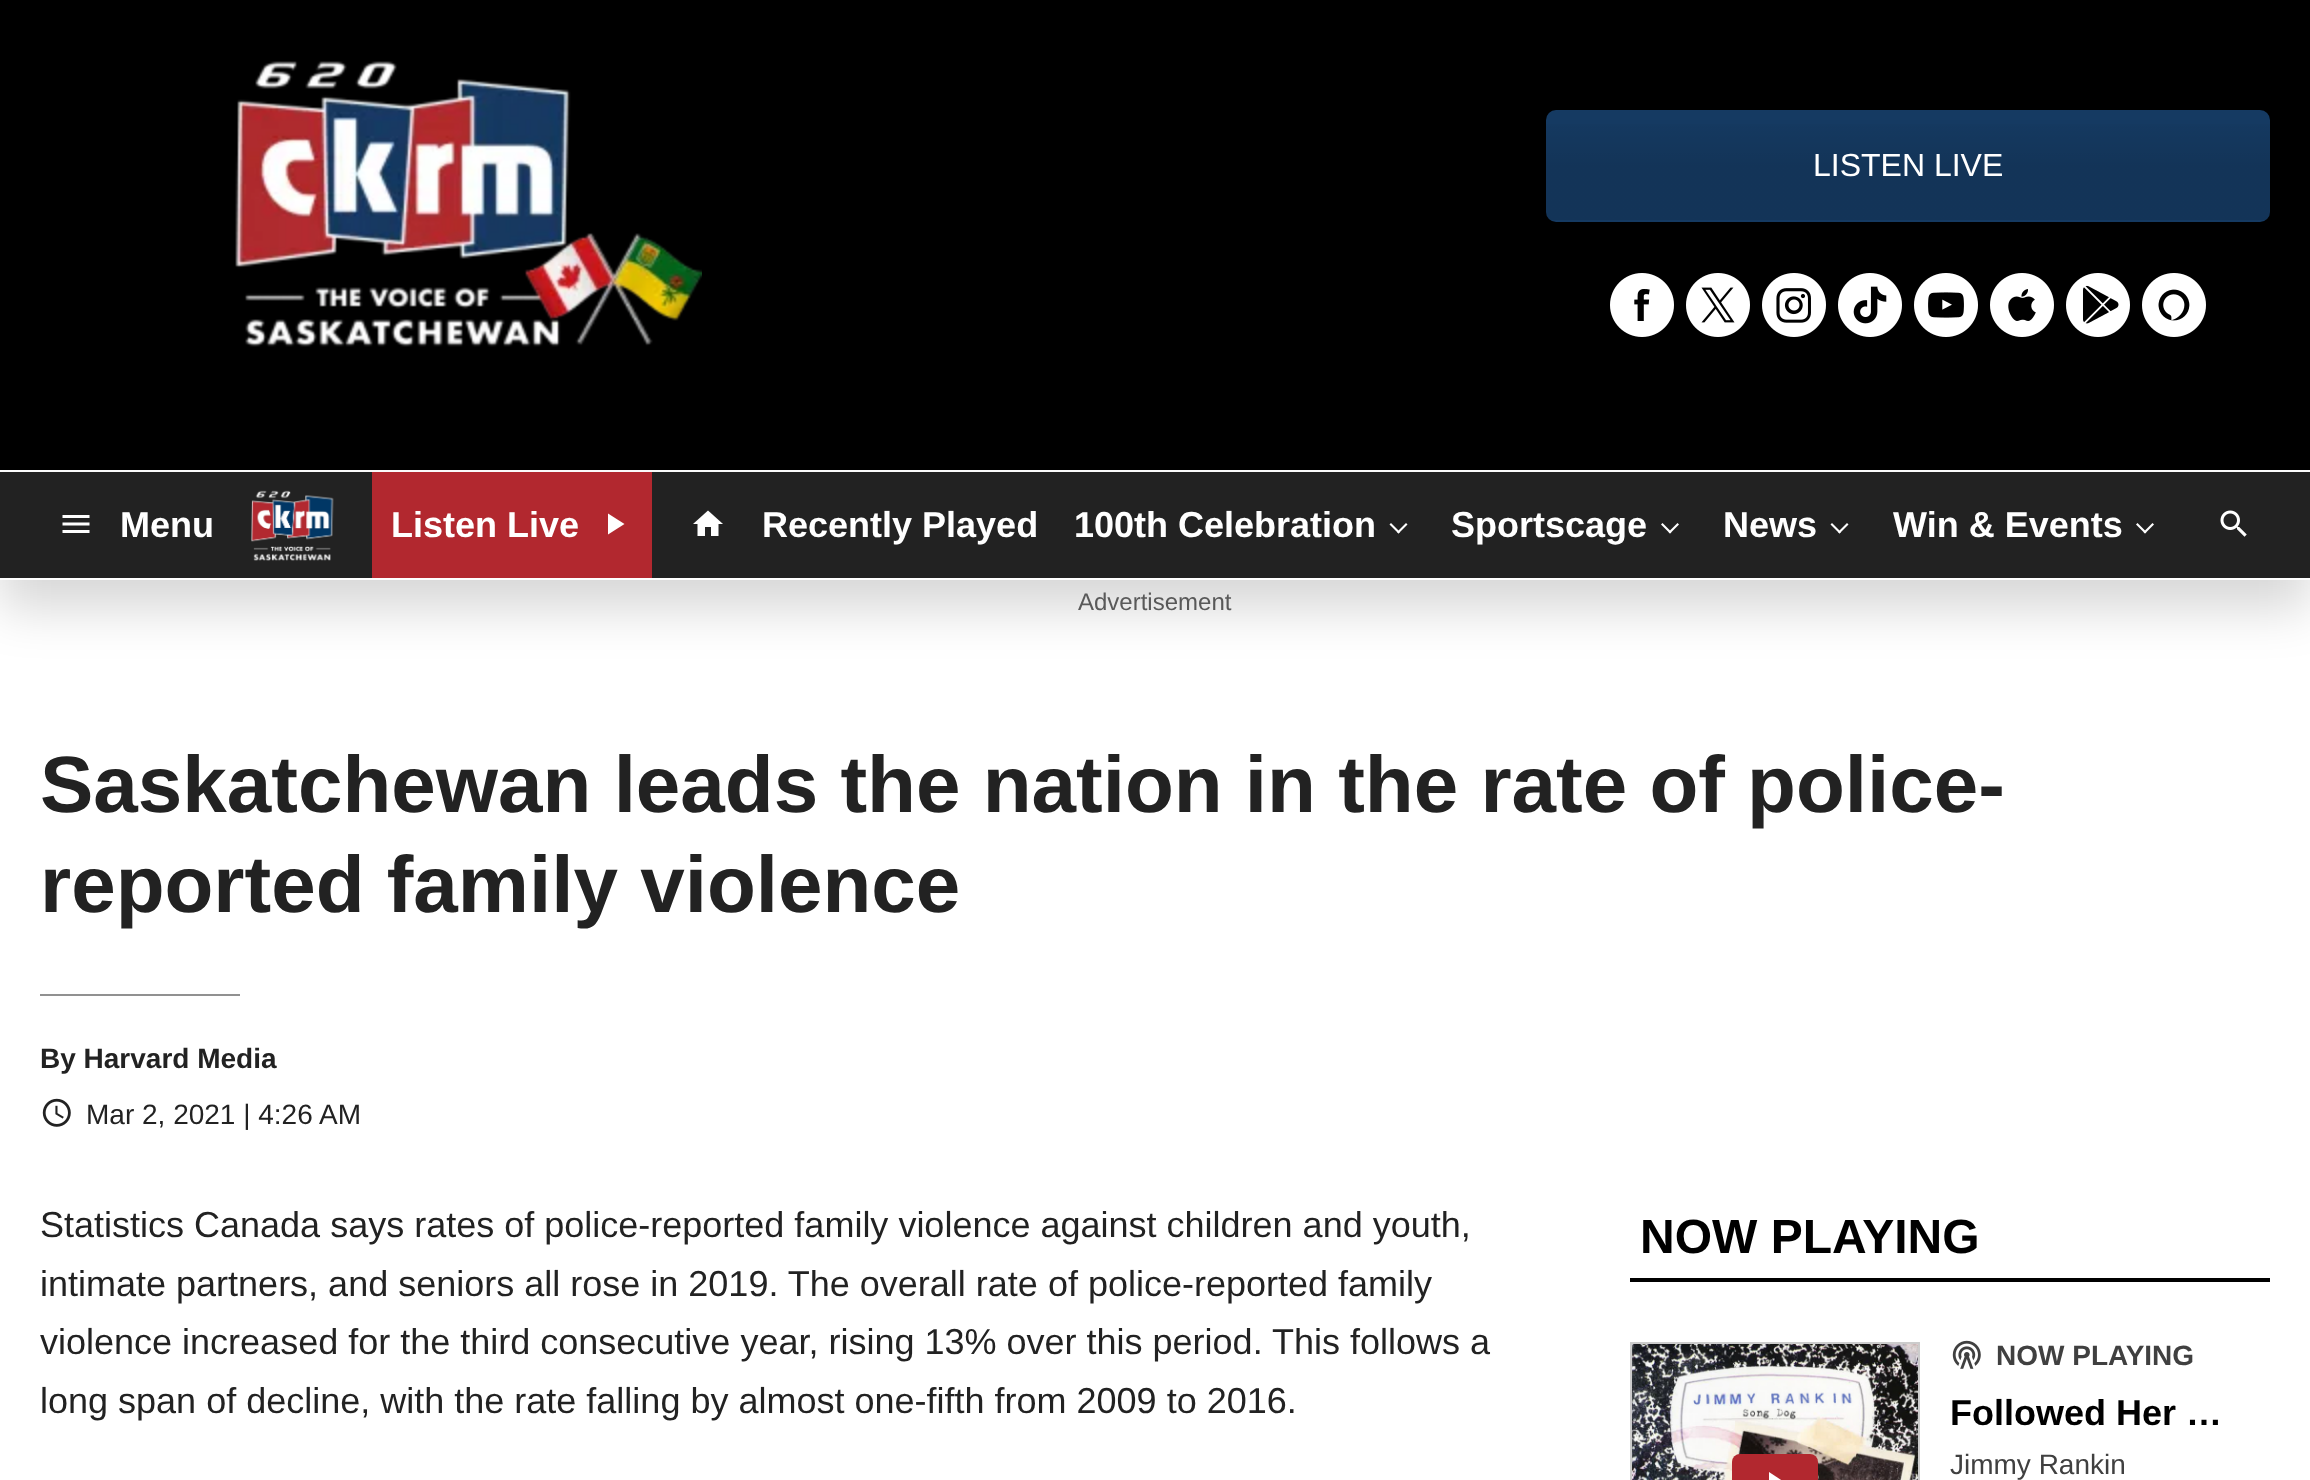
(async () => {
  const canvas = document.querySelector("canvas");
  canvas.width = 2310;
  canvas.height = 1480;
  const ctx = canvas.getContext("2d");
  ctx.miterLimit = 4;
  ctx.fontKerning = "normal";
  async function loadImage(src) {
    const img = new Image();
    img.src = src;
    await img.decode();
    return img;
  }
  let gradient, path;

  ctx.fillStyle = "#ffffff";
  ctx.fillRect(0, 0, 2310, 1480);
  ctx.fillStyle = "#000000";
  ctx.fillRect(0, 0, 2310, 470);
  ctx.drawImage(await loadImage("img/1.png"), 235, 61, 467, 286);
  ctx.fillStyle = "#153a62";
  ctx.beginPath();
  ctx.roundRect(1546, 110, 724, 112, 10);
  ctx.fill();
  ctx.save();
  ctx.beginPath();
  ctx.roundRect(1546, 110, 724, 112, 10);
  ctx.clip();
  gradient = ctx.createLinearGradient(2268, 112, 2268, 220);
  gradient.addColorStop(0, "rgba(0, 0, 0, 0)");
  gradient.addColorStop(0.5, "rgba(0, 0, 0, 0.1)");
  gradient.addColorStop(1, "rgba(0, 0, 0, 0.1)");
  ctx.fillStyle = gradient;
  ctx.fillRect(1546, 124, 724, 96);
  ctx.restore();
  ctx.drawImage(await loadImage("img/2.png"), 1610, 273, 64, 64);
  ctx.drawImage(await loadImage("img/3.png"), 1686, 273, 64, 64);
  ctx.drawImage(await loadImage("img/4.png"), 1762, 273, 64, 64);
  ctx.drawImage(await loadImage("img/5.png"), 1838, 273, 64, 64);
  ctx.drawImage(await loadImage("img/6.png"), 1914, 273, 64, 64);
  ctx.drawImage(await loadImage("img/7.png"), 1990, 273, 64, 64);
  ctx.drawImage(await loadImage("img/8.png"), 2066, 273, 64, 64);
  ctx.drawImage(await loadImage("img/9.png"), 2142, 273, 64, 64);
  ctx.fillStyle = "rgba(0, 0, 0, 0.16)";
  ctx.filter = "blur(25px)";
  ctx.beginPath();
  ctx.rect(0, 500, 2310, 108);
  ctx.fill();
  ctx.filter = "none";
  ctx.fillStyle = "#222222";
  ctx.fillRect(0, 472, 2310, 106);
  ctx.fillStyle = "#ffffff";
  ctx.fillRect(0, 578, 2310, 2);
  ctx.drawImage(await loadImage("img/10.png"), 62, 515, 28, 18);
  ctx.drawImage(await loadImage("img/11.png"), 251, 490, 83, 71);
  ctx.fillStyle = "#b2282f";
  ctx.fillRect(372, 472, 280, 106);
  ctx.fillStyle = "#ffffff";
  path = new Path2D("M608 513.5V534.5L624.5 524Z");
  ctx.fill(path);
  ctx.drawImage(await loadImage("img/12.png"), 693, 510, 30, 26);
  path = new Path2D("M1407.5 524.5L1398.5 533.5L1397 532L1406 523Z");
  ctx.fill(path);
  path = new Path2D("M1400 532L1398.5 533.5L1389.5 524.5L1391 523Z");
  ctx.fill(path);
  path = new Path2D("M1679 524.5L1670 533.5L1668.5 532L1677.5 523Z");
  ctx.fill(path);
  path = new Path2D("M1671.5 532L1670 533.5L1661 524.5L1662.5 523Z");
  ctx.fill(path);
  path = new Path2D("M1848.5 524.5L1839.5 533.5L1838 532L1847 523Z");
  ctx.fill(path);
  path = new Path2D("M1841 532L1839.5 533.5L1830.5 524.5L1832 523Z");
  ctx.fill(path);
  path = new Path2D("M2154 524.5L2145 533.5L2143.5 532L2152.5 523Z");
  ctx.fill(path);
  path = new Path2D("M2146.5 532L2145 533.5L2136 524.5L2137.5 523Z");
  ctx.fill(path);
  ctx.drawImage(await loadImage("img/13.png"), 2220, 510, 27, 27);
  ctx.fillStyle = "#919191";
  ctx.fillRect(40, 994, 200, 2);
  ctx.drawImage(await loadImage("img/14.png"), 42, 1098, 29, 29);
  ctx.fillStyle = "#000000";
  ctx.fillRect(1630, 1278, 640, 4);
  ctx.strokeStyle = "#cccccc";
  ctx.lineWidth = 2;
  ctx.strokeRect(1631, 1343, 288, 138);
  ctx.drawImage(await loadImage("img/15.png"), 1632, 1344, 286, 136);
  ctx.fillStyle = "#b2282f";
  ctx.beginPath();
  ctx.roundRect(1732, 1454, 86, 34, 8);
  ctx.fill();
  ctx.fillStyle = "#ffffff";
  path = new Path2D("M1769 1472V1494.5L1786.5 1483.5Z");
  ctx.fill(path);
  ctx.drawImage(await loadImage("img/16.png"), 1952, 1340, 29, 29);
  ctx.font = "32px Liberation Sans";
  ctx.fillText("LISTEN LIVE", 1813, 176);
  ctx.font = "bold 36px Liberation Sans";
  for (const [text, x, y] of [
    ["Menu", 120, 537],
    ["Listen Live", 391, 537],
    ["Recently Played", 762, 537],
    ["100th Celebration", 1074, 537],
    ["Sportscage", 1451, 537],
    ["News", 1723, 537],
    ["Win & Events", 1893, 537],
  ]) {
    ctx.fillText(text, x, y);
  }
  ctx.font = "24px Liberation Sans";
  ctx.fillStyle = "#595959";
  ctx.fillText("Advertisement", 1078, 610);
  ctx.font = "bold 80px Liberation Sans";
  ctx.fillStyle = "#222222";
  ctx.fillText("Saskatchewan leads the nation in the rate of police-", 40, 812);
  ctx.fillText("reported family violence", 40, 912);
  ctx.font = "bold 28px Liberation Sans";
  ctx.fillText("By Harvard Media", 40, 1068);
  ctx.font = "28px Liberation Sans";
  ctx.fillText("Mar 2, 2021 | 4:26 AM", 86, 1124);
  ctx.font = "36px Liberation Sans";
  for (const [text, x, y] of [
    ["Statistics Canada says rates of police-reported family violence against children and youth,", 40, 1237],
    ["intimate partners, and seniors all rose in 2019. The overall rate of police-reported family", 40, 1296],
    ["violence increased for the third consecutive year, rising 13% over this period. This follows a", 40, 1354],
    ["long span of decline, with the rate falling by almost one-fifth from 2009 to 2016.", 40, 1413],
  ]) {
    ctx.fillText(text, x, y);
  }
  ctx.font = "bold 48px Liberation Sans";
  ctx.fillStyle = "#000000";
  ctx.fillText("NOW PLAYING", 1640, 1253);
  ctx.font = "bold 28px Liberation Sans";
  ctx.fillStyle = "#404040";
  ctx.fillText("NOW PLAYING", 1996, 1365);
  ctx.font = "bold 36px Liberation Sans";
  ctx.fillStyle = "#000000";
  ctx.fillText("Followed Her …", 1950, 1425);
  ctx.font = "28px Liberation Sans";
  ctx.fillStyle = "#404040";
  ctx.fillText("Jimmy Rankin", 1950, 1474);
})();
